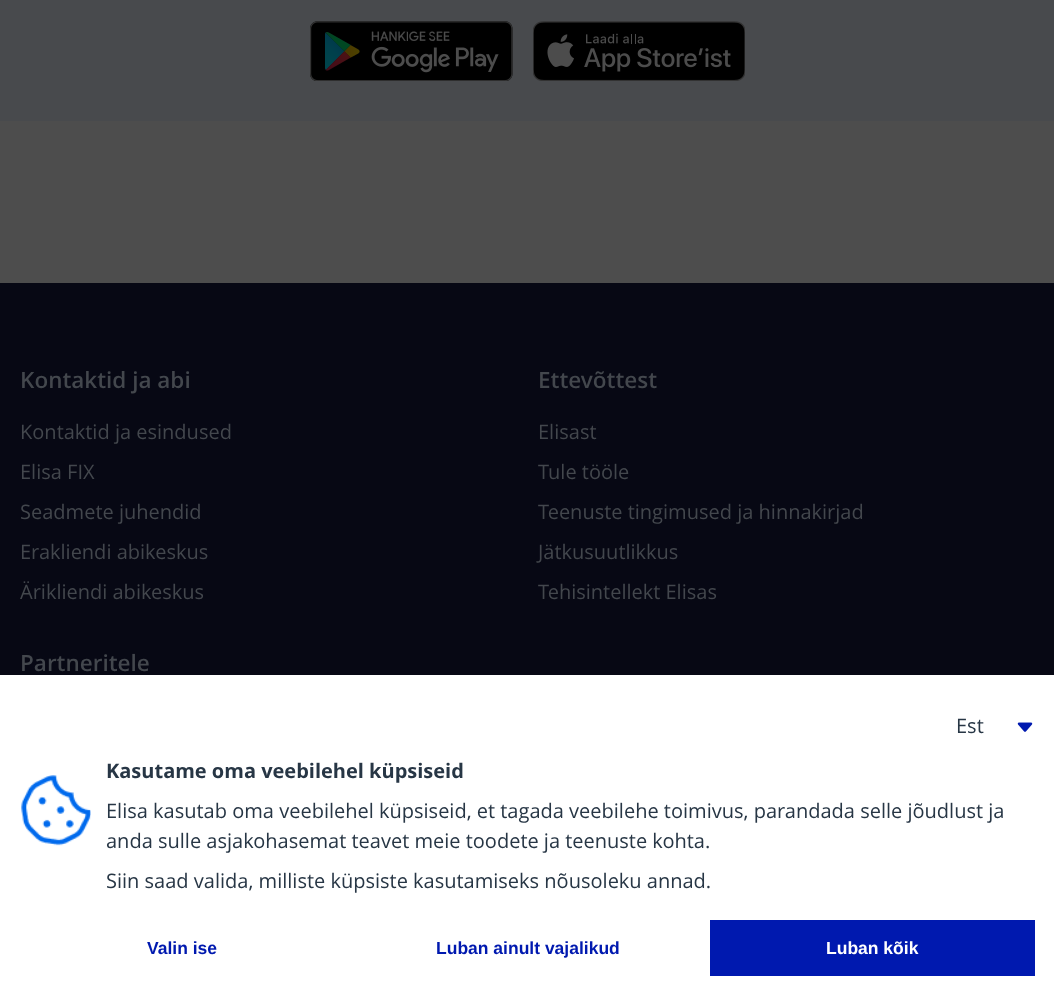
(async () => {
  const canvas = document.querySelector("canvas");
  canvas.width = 1054;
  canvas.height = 996;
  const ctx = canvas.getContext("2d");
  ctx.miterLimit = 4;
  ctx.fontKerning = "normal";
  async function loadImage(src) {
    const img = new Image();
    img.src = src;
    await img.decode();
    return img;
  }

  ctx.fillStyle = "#4d4d4d";
  ctx.fillRect(0, 0, 1054, 996);
  ctx.fillStyle = "#484a4d";
  ctx.fillRect(0, 0, 1054, 121);
  ctx.drawImage(await loadImage("img/1.png"), 310, 21, 203, 60);
  ctx.drawImage(await loadImage("img/2.png"), 533, 21, 212, 60);
  ctx.fillStyle = "#070814";
  ctx.fillRect(0, 283, 1054, 392);
  ctx.fillStyle = "#ffffff";
  ctx.fillRect(0, 675, 1054, 321);
  ctx.drawImage(await loadImage("img/3.png"), 1017, 722, 16, 10);
  ctx.drawImage(await loadImage("img/4.png"), 21, 775, 70, 71);
  ctx.fillStyle = "#0019af";
  ctx.fillRect(710, 920, 325, 56);
  ctx.font = "600 22.5px Open Sans";
  ctx.fillStyle = "#43474d";
  ctx.fillText("Kontaktid ja abi", 20, 388);
  ctx.font = "20px Open Sans";
  for (const [text, x, y] of [
    ["Kontaktid ja esindused", 20, 439],
    ["Elisa FIX", 20, 479],
    ["Seadmete juhendid", 20, 519],
    ["Erakliendi abikeskus", 20, 559],
    ["Ärikliendi abikeskus", 20, 599],
  ]) {
    ctx.fillText(text, x, y);
  }
  ctx.font = "600 22.5px Open Sans";
  ctx.fillText("Ettevõttest", 538, 388);
  ctx.font = "20px Open Sans";
  for (const [text, x, y] of [
    ["Elisast", 538, 439],
    ["Tule tööle", 538, 479],
    ["Teenuste tingimused ja hinnakirjad", 538, 519],
    ["Jätkusuutlikkus", 538, 559],
    ["Tehisintellekt Elisas", 538, 599],
  ]) {
    ctx.fillText(text, x, y);
  }
  ctx.font = "600 22.5px Open Sans";
  ctx.fillText("Partneritele", 20, 671);
  ctx.font = "20px Open Sans";
  ctx.fillStyle = "#273645";
  ctx.fillText("Est", 956, 733);
  ctx.font = "bold 20px Open Sans";
  ctx.fillText("Kasutame oma veebilehel küpsiseid", 106, 778);
  ctx.font = "20px Open Sans";
  for (const [text, x, y] of [
    ["Elisa kasutab oma veebilehel küpsiseid, et tagada veebilehe toimivus, parandada selle jõudlust ja", 106, 818],
    ["anda sulle asjakohasemat teavet meie toodete ja teenuste kohta.", 106, 848],
    ["Siin saad valida, milliste küpsiste kasutamiseks nõusoleku annad.", 106, 888],
  ]) {
    ctx.fillText(text, x, y);
  }
  ctx.font = "bold 17.5px Liberation Sans";
  ctx.fillStyle = "#0019af";
  ctx.fillText("Valin ise", 147, 954);
  ctx.fillText("Luban ainult vajalikud", 436, 954);
  ctx.fillStyle = "#ffffff";
  ctx.fillText("Luban kõik", 826, 954);
})();
